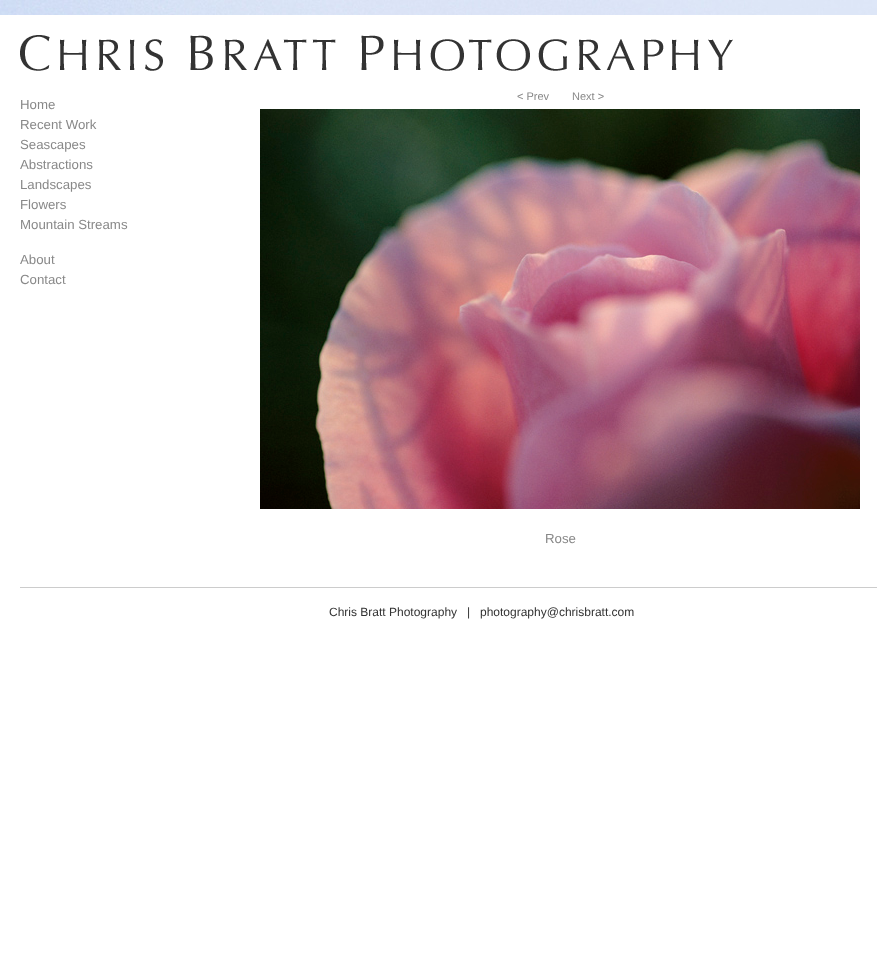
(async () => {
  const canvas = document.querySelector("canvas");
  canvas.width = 877;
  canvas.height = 965;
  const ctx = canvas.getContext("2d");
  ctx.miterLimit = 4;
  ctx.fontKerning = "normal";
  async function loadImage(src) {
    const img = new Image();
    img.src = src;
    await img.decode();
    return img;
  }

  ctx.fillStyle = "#ffffff";
  ctx.fillRect(0, 0, 877, 965);
  ctx.drawImage(await loadImage("img/1.png"), 0, 0, 877, 15);
  ctx.drawImage(await loadImage("img/2.png"), 20, 35, 713, 36);
  ctx.drawImage(await loadImage("img/3.png"), 260, 109, 600, 400);
  ctx.fillStyle = "#cccccc";
  ctx.fillRect(20, 587, 857, 1);
  ctx.font = "13.25px Liberation Sans";
  ctx.fillStyle = "#888888";
  for (const [text, x, y] of [
    ["Home", 20, 109],
    ["Recent Work", 20, 129],
    ["Seascapes", 20, 149],
    ["Abstractions", 20, 169],
    ["Landscapes", 20, 189],
    ["Flowers", 20, 209],
    ["Mountain Streams", 20, 229],
    ["About", 20, 264],
    ["Contact", 20, 284],
  ]) {
    ctx.fillText(text, x, y);
  }
  ctx.font = "11px Liberation Sans";
  ctx.fillText("< Prev", 517, 100);
  ctx.fillText("Next >", 572, 100);
  ctx.font = "13.25px Liberation Sans";
  ctx.fillText("Rose", 545, 543);
  ctx.font = "12px Liberation Sans";
  ctx.fillStyle = "#333333";
  ctx.fillText("Chris Bratt Photography   |", 329, 616);
  ctx.fillText("photography@chrisbratt.com", 480, 616);
})();
